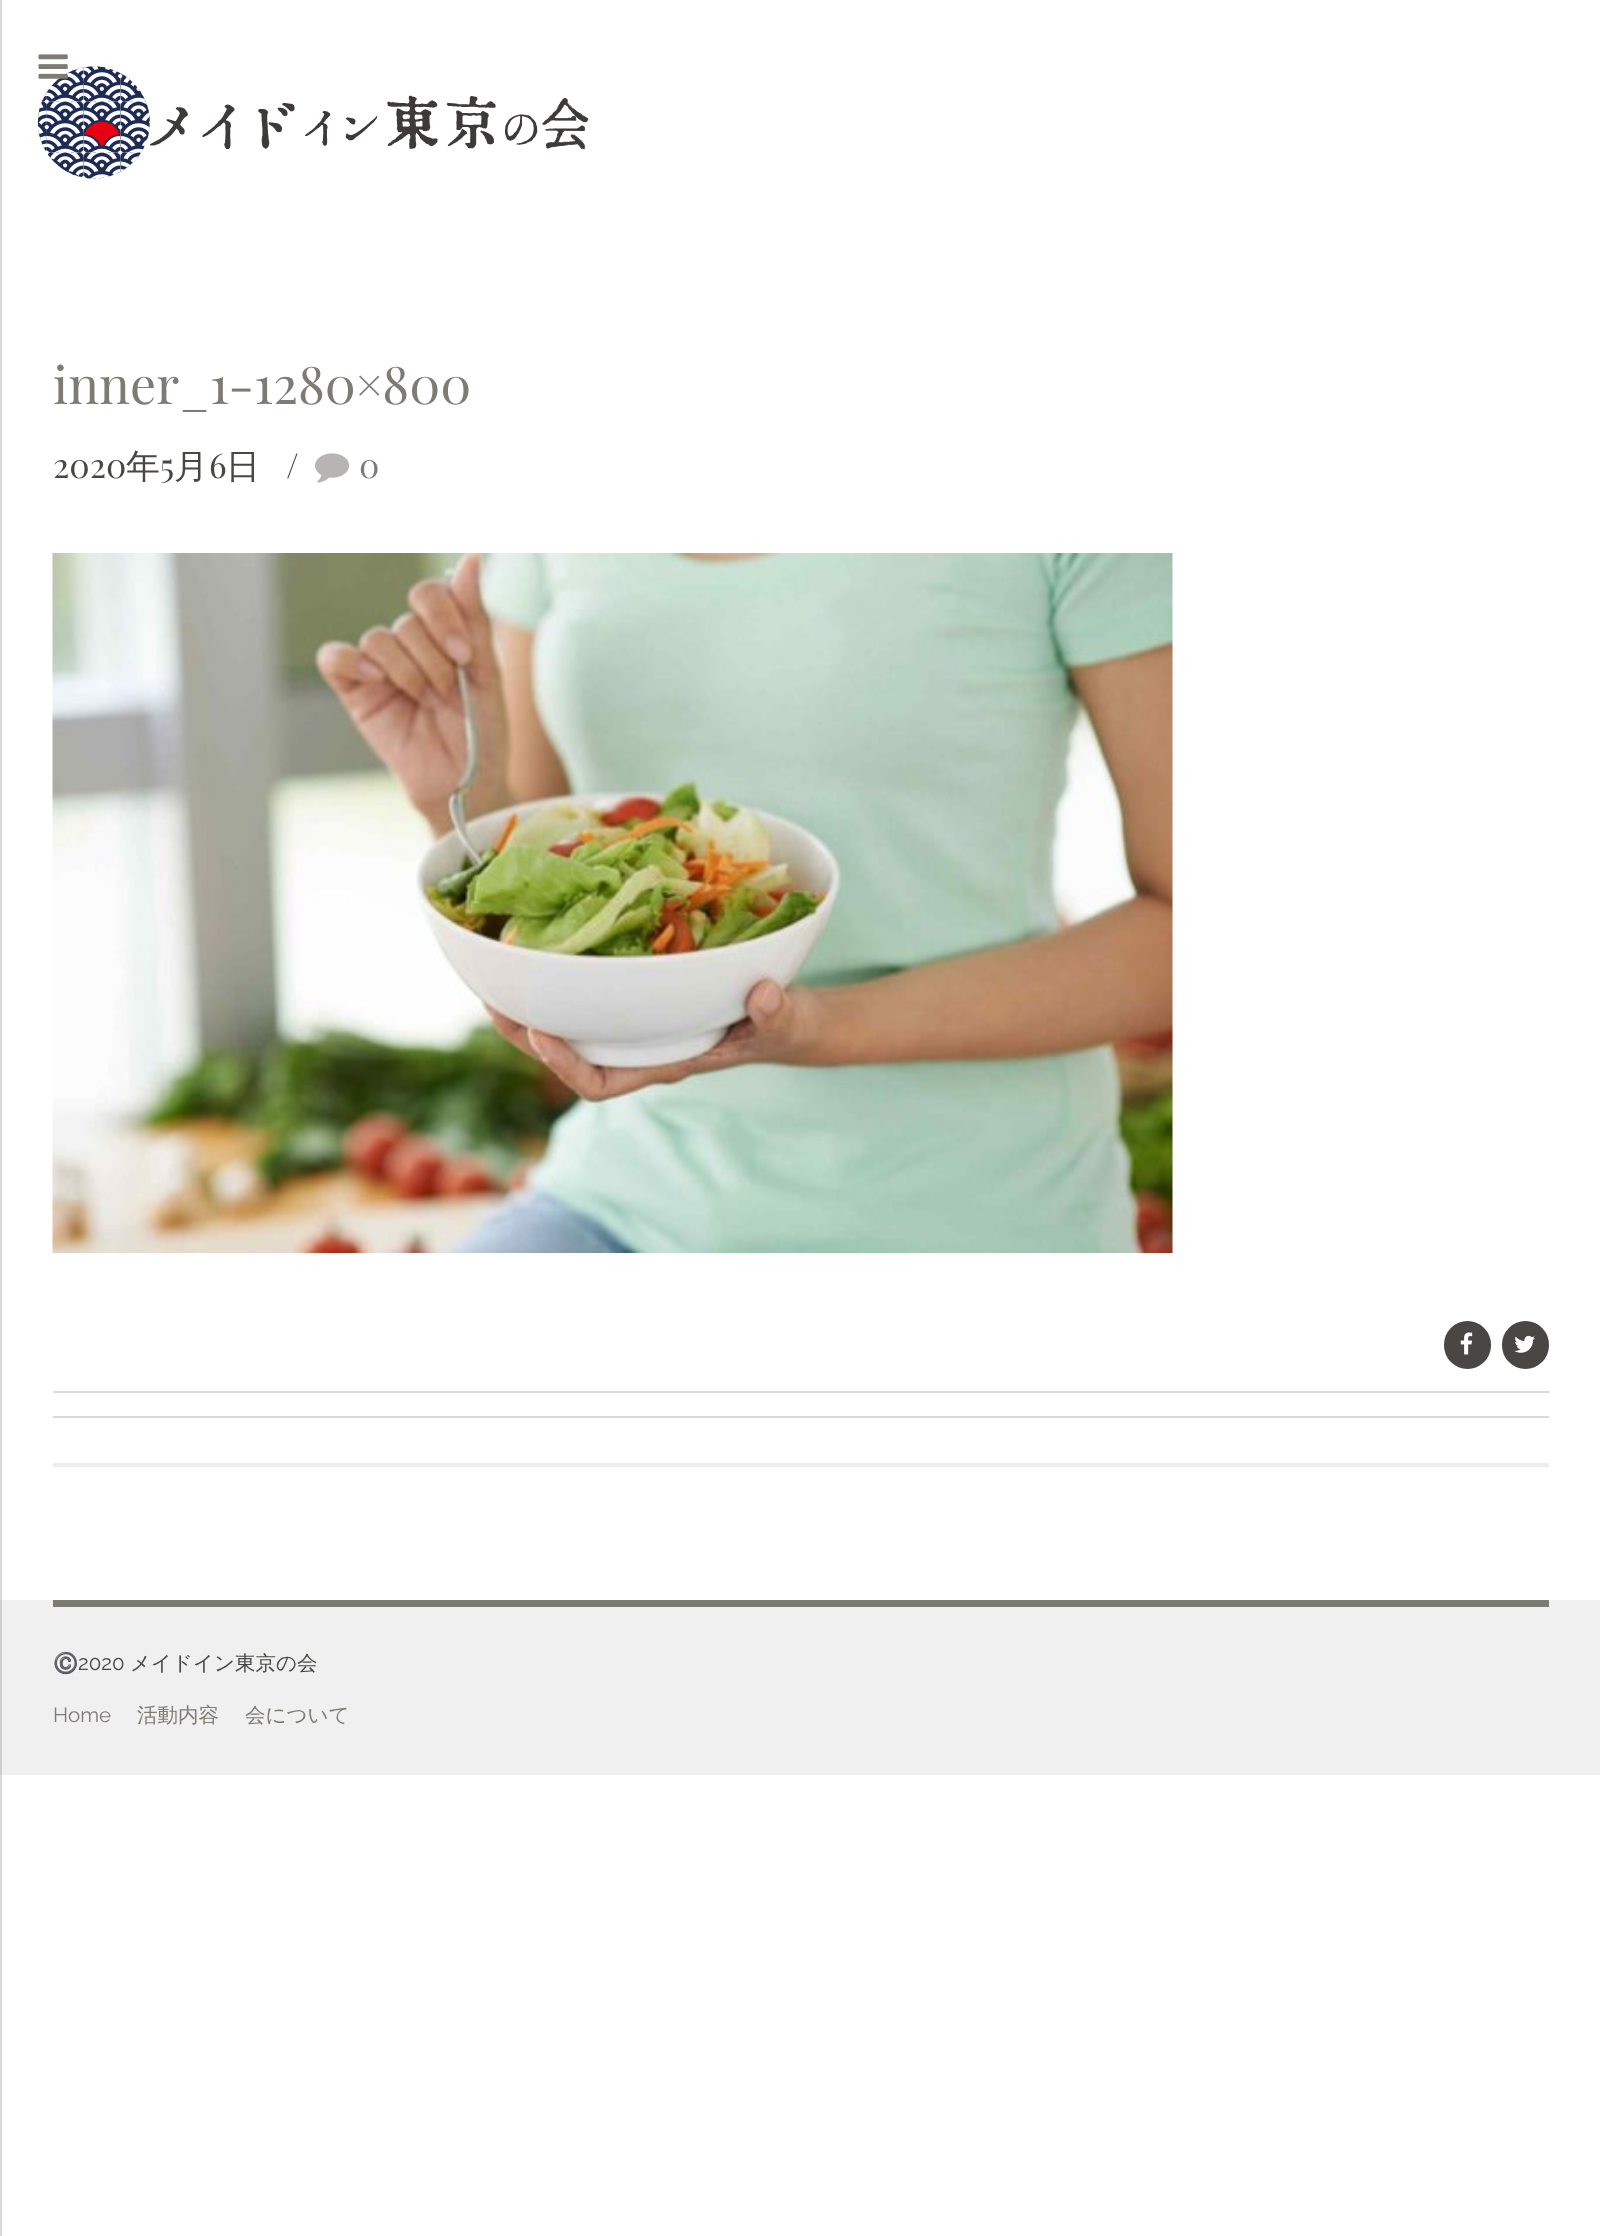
(async () => {
  const canvas = document.querySelector("canvas");
  canvas.width = 1600;
  canvas.height = 2236;
  const ctx = canvas.getContext("2d");
  ctx.miterLimit = 4;
  ctx.fontKerning = "normal";
  async function loadImage(src) {
    const img = new Image();
    img.src = src;
    await img.decode();
    return img;
  }
  let path;

  ctx.fillStyle = "#ffffff";
  ctx.fillRect(0, 0, 1600, 2236);
  ctx.fillStyle = "#f0f0f0";
  ctx.fillRect(0, 1600, 1600, 175);
  ctx.fillStyle = "rgba(0, 0, 0, 0.15)";
  path = new Path2D("M-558 2236V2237H2V0H0V2236Z");
  ctx.fill(path);
  ctx.drawImage(await loadImage("img/2.png"), 37, 66, 552, 113);
  ctx.drawImage(await loadImage("img/1.png"), 38, 54, 30, 25);
  ctx.drawImage(await loadImage("img/3.png"), 315, 453, 35, 30);
  ctx.drawImage(await loadImage("img/4.png"), 52, 553, 1121, 700);
  ctx.fillStyle = "#484743";
  ctx.beginPath();
  ctx.roundRect(1444, 1321, 47, 48, 23.5);
  ctx.fill();
  ctx.drawImage(await loadImage("img/5.png"), 1460, 1332, 13, 23);
  ctx.beginPath();
  ctx.roundRect(1502, 1321, 47, 48, 23.5);
  ctx.fill();
  ctx.drawImage(await loadImage("img/6.png"), 1514, 1335, 21, 18);
  for (const [x, y, w, h, color] of [
    [53, 1391, 1496, 2, "#d9d9d9"],
    [53, 1416, 1496, 2, "#d9d9d9"],
    [53, 1463, 1496, 4, "#ededed"],
    [53, 1600, 1496, 7, "#7e7b73"],
  ]) {
    ctx.fillStyle = color;
    ctx.fillRect(x, y, w, h);
  }
  ctx.font = "51.75px Playfair Display";
  ctx.fillText("inner_1-1280×800", 53, 404);
  ctx.font = "34px Playfair Display";
  ctx.fillStyle = "#484743";
  ctx.fillText("2020", 53, 478);
  ctx.font = "500 34px WenQuanYi Zen Hei";
  ctx.fillText("年", 126, 478);
  ctx.font = "34px Playfair Display";
  ctx.fillText("5", 160, 478);
  ctx.font = "500 34px WenQuanYi Zen Hei";
  ctx.fillText("月", 174, 478);
  ctx.font = "34px Playfair Display";
  ctx.fillText("6", 209, 478);
  ctx.font = "500 34px WenQuanYi Zen Hei";
  ctx.fillText("日", 226, 478);
  ctx.font = "34px Playfair Display";
  ctx.fillText("/", 286, 478);
  ctx.fillStyle = "#7e7b73";
  ctx.fillText("0", 359, 478);
  ctx.font = "20.5px Noto Color Emoji";
  ctx.fillStyle = "#484743";
  ctx.fillText("©️", 53, 1670);
  ctx.font = "20.5px Raleway";
  ctx.fillText("2020", 78, 1670);
  ctx.font = "500 20.5px WenQuanYi Zen Hei";
  ctx.fillText("メイドイン東京の会", 130, 1670);
  ctx.font = "20.5px Raleway";
  ctx.fillStyle = "#7e7b73";
  ctx.fillText("Home", 53, 1722);
  ctx.font = "500 20.5px WenQuanYi Zen Hei";
  ctx.fillText("活動内容", 137, 1722);
  ctx.fillText("会について", 245, 1722);
})();
